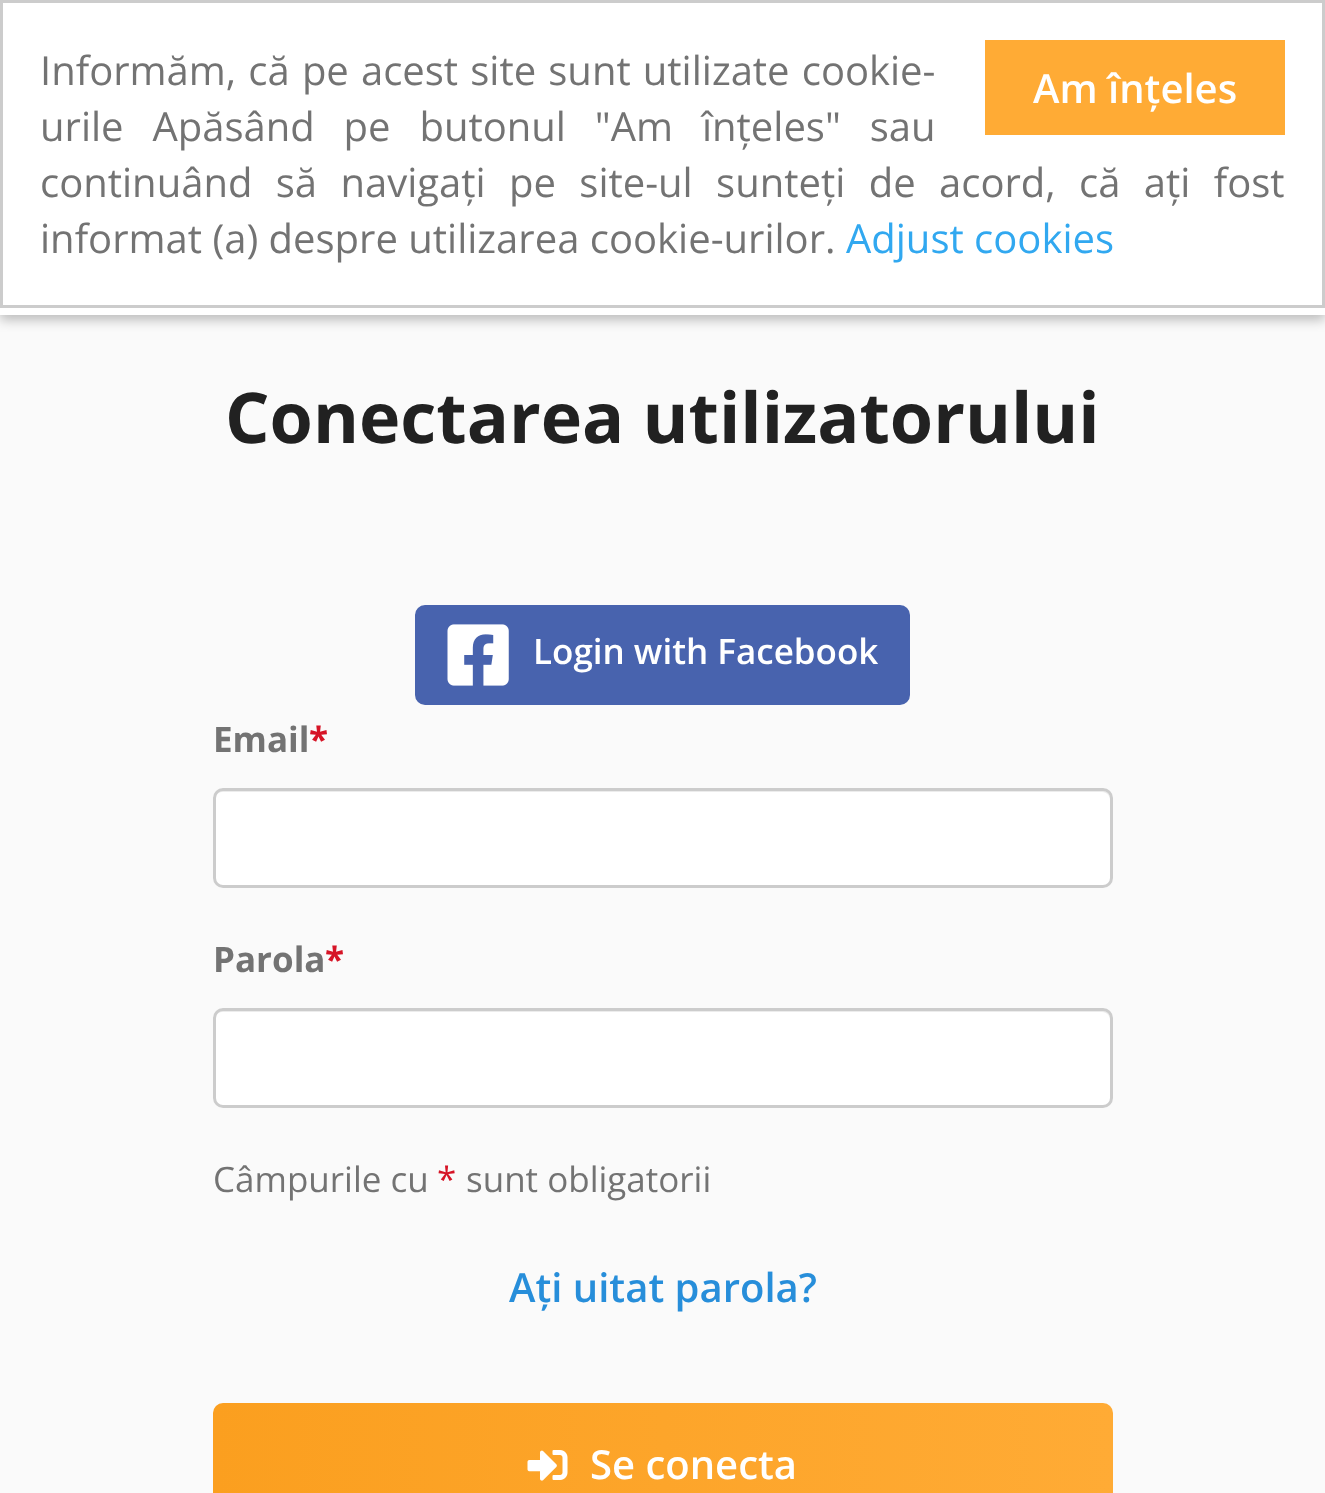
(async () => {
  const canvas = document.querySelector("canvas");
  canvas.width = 1325;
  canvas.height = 1493;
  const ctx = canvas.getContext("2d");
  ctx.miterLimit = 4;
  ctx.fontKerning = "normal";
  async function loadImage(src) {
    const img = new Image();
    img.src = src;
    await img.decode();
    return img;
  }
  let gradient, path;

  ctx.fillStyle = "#fafafa";
  ctx.fillRect(0, 0, 1325, 1493);
  ctx.fillStyle = "rgba(0, 0, 0, 0.25)";
  ctx.filter = "blur(6px)";
  ctx.beginPath();
  ctx.rect(0, 170, 1325, 150);
  ctx.fill();
  ctx.filter = "none";
  ctx.fillStyle = "#ffffff";
  ctx.beginPath();
  ctx.rect(1.5, 1.5, 1322, 305);
  ctx.fill();
  ctx.strokeStyle = "#cccccc";
  ctx.lineWidth = 3;
  ctx.stroke();
  ctx.fillStyle = "#ffab35";
  ctx.fillRect(985, 40, 300, 95);
  ctx.fillStyle = "#ffffff";
  ctx.fillRect(0, 308, 1325, 7);
  ctx.fillStyle = "#4863ae";
  ctx.beginPath();
  ctx.roundRect(416.5, 606.5, 492, 97, 8.5);
  ctx.fill();
  ctx.strokeStyle = "#4863ae";
  ctx.stroke();
  ctx.drawImage(await loadImage("img/1.png"), 447, 624, 62, 62);
  ctx.fillStyle = "#ffffff";
  ctx.beginPath();
  ctx.roundRect(213, 788, 900, 100, 10);
  ctx.fill();
  ctx.fillStyle = "#ececec";
  path = new Path2D("M222 792H1102C1107 792 1110 796 1110 800V798C1110 794 1106 790 1102 790H223C219 790 215 794 215 798V800C215 796 218 792 222 792Z");
  ctx.fill(path);
  ctx.beginPath();
  ctx.roundRect(214.5, 789.5, 897, 97, 8.5);
  ctx.strokeStyle = "#cccccc";
  ctx.stroke();
  ctx.fillStyle = "#ffffff";
  ctx.beginPath();
  ctx.roundRect(213, 1008, 900, 100, 10);
  ctx.fill();
  ctx.fillStyle = "#ececec";
  path = new Path2D("M222 1012H1102C1107 1012 1110 1016 1110 1020V1018C1110 1014 1106 1010 1102 1010H223C219 1010 215 1014 215 1018V1020C215 1016 218 1012 222 1012Z");
  ctx.fill(path);
  ctx.beginPath();
  ctx.roundRect(214.5, 1009.5, 897, 97, 8.5);
  ctx.stroke();
  gradient = ctx.createLinearGradient(1113, 1465, 213, 1465);
  gradient.addColorStop(0, "#ffab35");
  gradient.addColorStop(1, "#fb9f1f");
  ctx.fillStyle = gradient;
  ctx.beginPath();
  ctx.roundRect(213, 1403, 900, 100, 10);
  ctx.fill();
  ctx.drawImage(await loadImage("img/2.png"), 527, 1450, 41, 31);
  ctx.wordSpacing = "1.75px";
  ctx.font = "40px Open Sans";
  ctx.fillStyle = "#737373";
  ctx.fillText("Informăm, că pe acest site sunt utilizate cookie-", 40, 85);
  ctx.wordSpacing = "18.5px";
  ctx.fillText("urile Apăsând pe butonul \"Am înțeles\" sau", 40, 141);
  ctx.wordSpacing = "13px";
  ctx.fillText("continuând să navigați pe site-ul sunteți de acord, că ați fost", 40, 197);
  ctx.wordSpacing = "0px";
  ctx.fillText("informat (a) despre utilizarea cookie-urilor.", 40, 253);
  ctx.fillStyle = "#31a8f0";
  ctx.fillText("Adjust cookies", 846, 253);
  ctx.font = "600 40px Open Sans";
  ctx.fillStyle = "#ffffff";
  ctx.fillText("Am înțeles", 1033, 103);
  ctx.font = "bold 70px Open Sans";
  ctx.fillStyle = "#212121";
  ctx.fillText("Conectarea utilizatorului", 225, 443);
  ctx.font = "600 35px Open Sans";
  ctx.fillStyle = "#ffffff";
  ctx.fillText("Login with Facebook", 533, 664);
  ctx.font = "bold 35px Open Sans";
  ctx.fillStyle = "#737373";
  ctx.fillText("Email", 213, 752);
  ctx.fillStyle = "#d61426";
  ctx.fillText("*", 309, 752);
  ctx.fillStyle = "#737373";
  ctx.fillText("Parola", 213, 972);
  ctx.fillStyle = "#d61426";
  ctx.fillText("*", 325, 972);
  ctx.font = "35px Open Sans";
  ctx.fillStyle = "#737373";
  ctx.fillText("Câmpurile cu", 213, 1192);
  ctx.fillStyle = "#d61426";
  ctx.fillText("*", 437, 1192);
  ctx.fillStyle = "#737373";
  ctx.fillText("sunt obligatorii", 466, 1192);
  ctx.font = "600 40px Open Sans";
  ctx.fillStyle = "#278eda";
  ctx.fillText("Ați uitat parola?", 509, 1302);
  ctx.fillStyle = "#ffffff";
  ctx.fillText("Se conecta", 590, 1479);
})();
